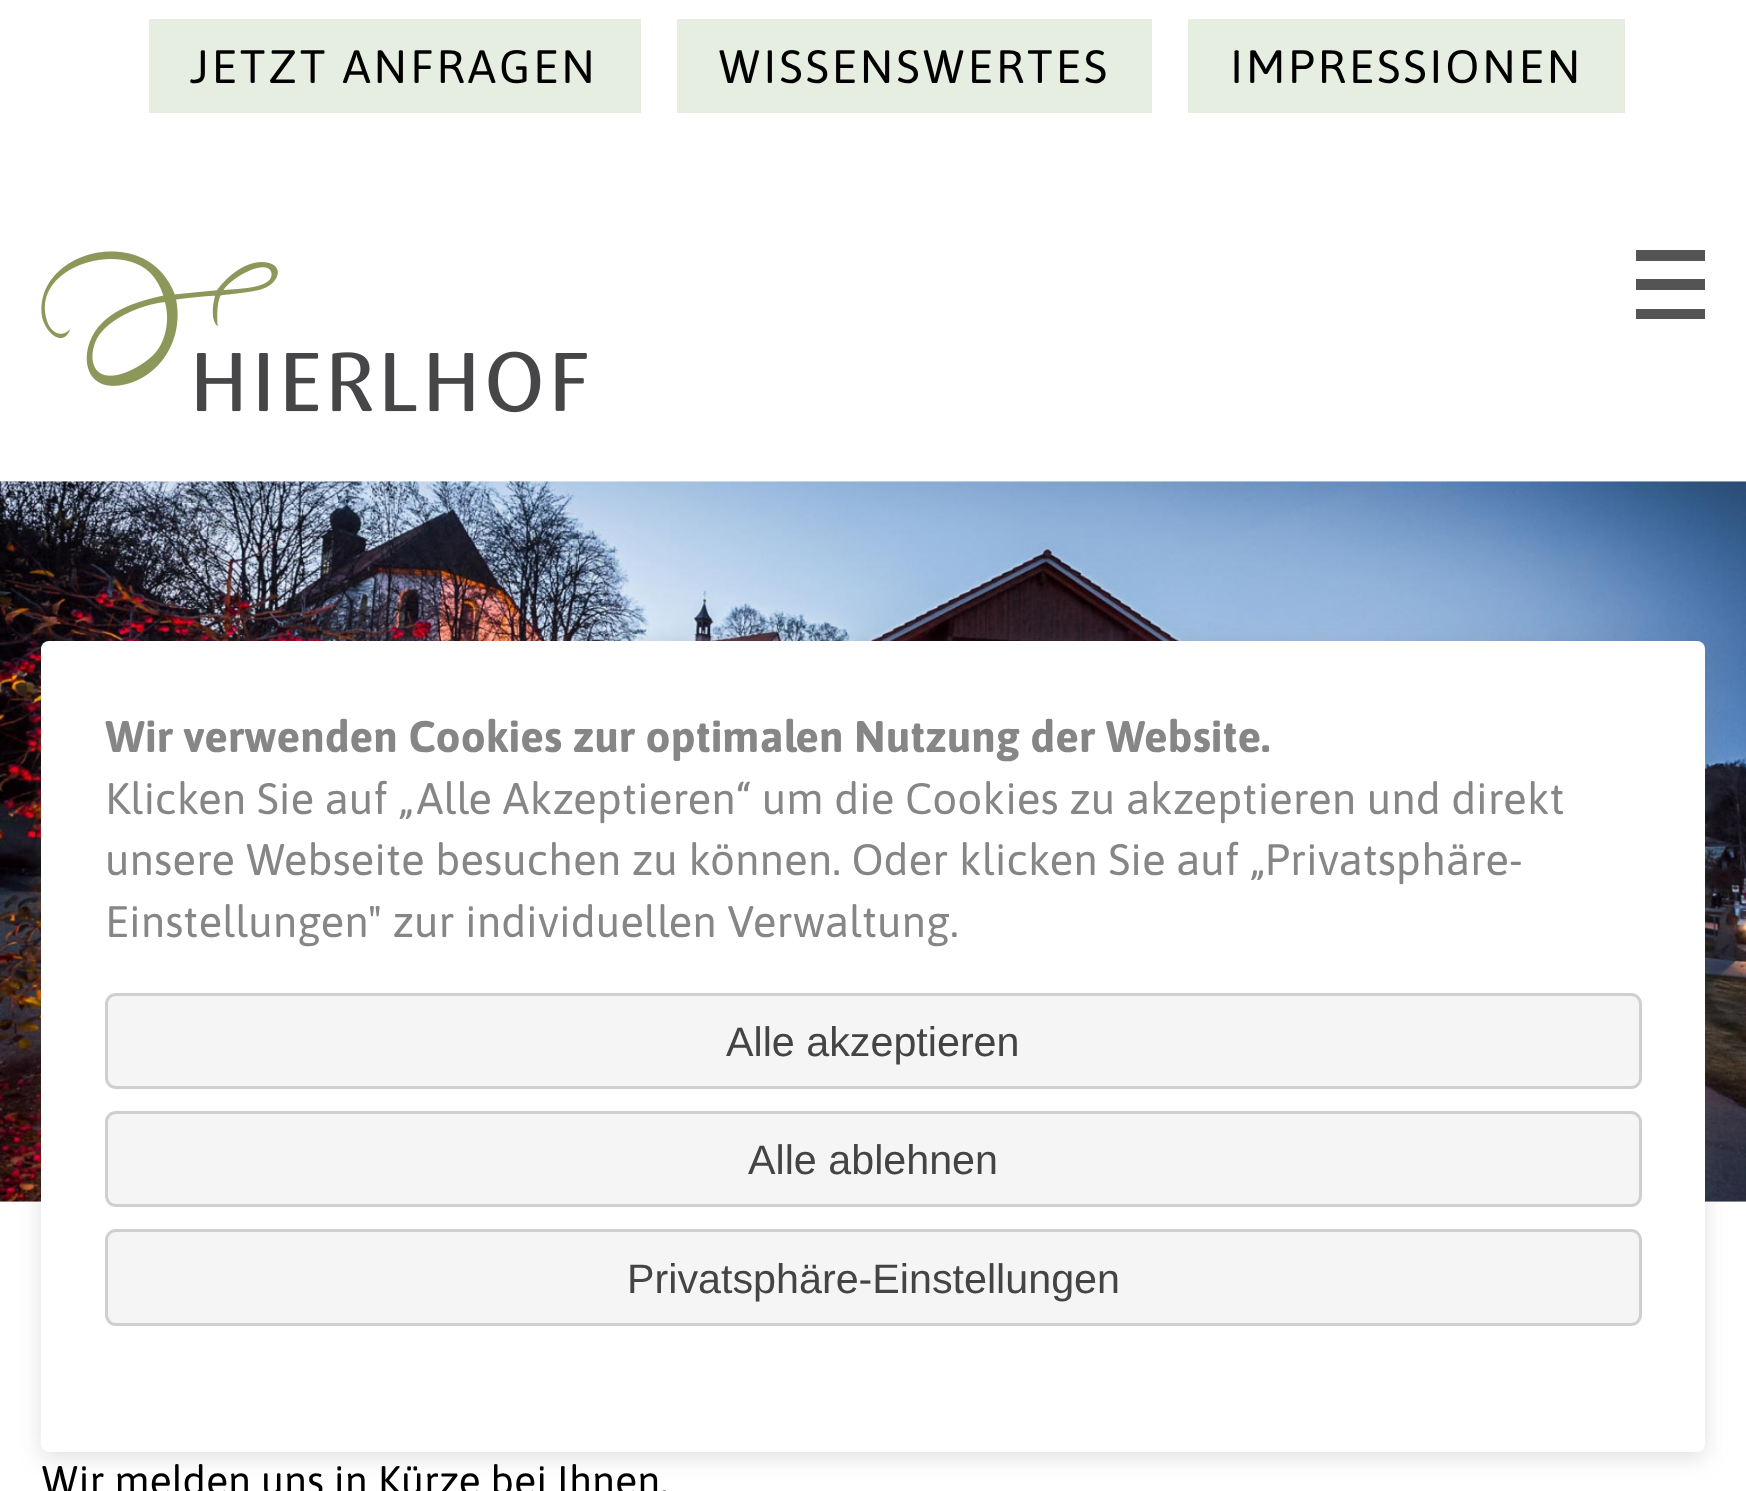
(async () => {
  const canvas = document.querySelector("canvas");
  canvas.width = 1746;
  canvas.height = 1491;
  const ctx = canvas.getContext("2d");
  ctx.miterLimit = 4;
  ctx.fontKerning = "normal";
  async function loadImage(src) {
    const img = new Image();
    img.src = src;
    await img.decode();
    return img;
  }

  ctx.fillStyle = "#ffffff";
  ctx.fillRect(0, 0, 1746, 1491);
  for (const [x, y, w, h, color] of [
    [149, 19, 492, 94, "#e6ede1"],
    [677, 19, 475, 94, "#e6ede1"],
    [1188, 19, 437, 94, "#e6ede1"],
  ]) {
    ctx.fillStyle = color;
    ctx.fillRect(x, y, w, h);
  }
  ctx.drawImage(await loadImage("img/1.png"), 41, 251, 546, 162);
  for (const [x, y, w, h, color] of [
    [1636, 250, 69, 11, "#555454"],
    [1636, 279, 69, 11, "#555454"],
    [1636, 309, 69, 10, "#555454"],
  ]) {
    ctx.fillStyle = color;
    ctx.fillRect(x, y, w, h);
  }
  ctx.drawImage(await loadImage("img/2.png"), 0, 481, 1746, 721);
  ctx.fillStyle = "rgba(99, 99, 99, 0.2)";
  ctx.filter = "blur(11px)";
  ctx.beginPath();
  ctx.roundRect(41, 646, 1664, 812, 8);
  ctx.fill();
  ctx.filter = "none";
  ctx.fillStyle = "#ffffff";
  ctx.beginPath();
  ctx.roundRect(41, 641, 1664, 811, 8);
  ctx.fill();
  ctx.fillStyle = "#f5f5f5";
  ctx.beginPath();
  ctx.roundRect(106.5, 994.5, 1534, 93, 9.5);
  ctx.fill();
  ctx.strokeStyle = "#cfcfcf";
  ctx.lineWidth = 3;
  ctx.stroke();
  ctx.beginPath();
  ctx.roundRect(106.5, 1112.5, 1534, 93, 9.5);
  ctx.fill();
  ctx.stroke();
  ctx.beginPath();
  ctx.roundRect(106.5, 1230.5, 1534, 94, 9.5);
  ctx.fill();
  ctx.stroke();
  ctx.letterSpacing = "2.75px";
  ctx.font = "46.75px Asap";
  ctx.fillStyle = "#000000";
  for (const [text, x, y] of [
    ["JETZT ANFRAGEN", 190, 83],
    ["WISSENSWERTES", 718, 83],
    ["IMPRESSIONEN", 1230, 83],
  ]) {
    ctx.fillText(text, x, y);
  }
  ctx.letterSpacing = "0px";
  ctx.font = "41.25px Asap";
  ctx.fillText("Wir melden uns in Kürze bei Ihnen.", 41, 1495);
  ctx.font = "bold 44px Asap";
  ctx.fillStyle = "#868686";
  ctx.fillText("Wir verwenden Cookies zur optimalen Nutzung der Website.", 105, 752);
  ctx.font = "44px Asap";
  for (const [text, x, y] of [
    ["Klicken Sie auf „Alle Akzeptieren“ um die Cookies zu akzeptieren und direkt", 105, 814],
    ["unsere Webseite besuchen zu können. Oder klicken Sie auf „Privatsphäre-", 105, 875],
    ["Einstellungen\" zur individuellen Verwaltung.", 105, 937],
  ]) {
    ctx.fillText(text, x, y);
  }
  ctx.font = "41.25px Liberation Sans";
  ctx.fillStyle = "#444444";
  for (const [text, x, y] of [
    ["Alle akzeptieren", 726, 1056],
    ["Alle ablehnen", 748, 1174],
    ["Privatsphäre-Einstellungen", 627, 1293],
  ]) {
    ctx.fillText(text, x, y);
  }
})();
